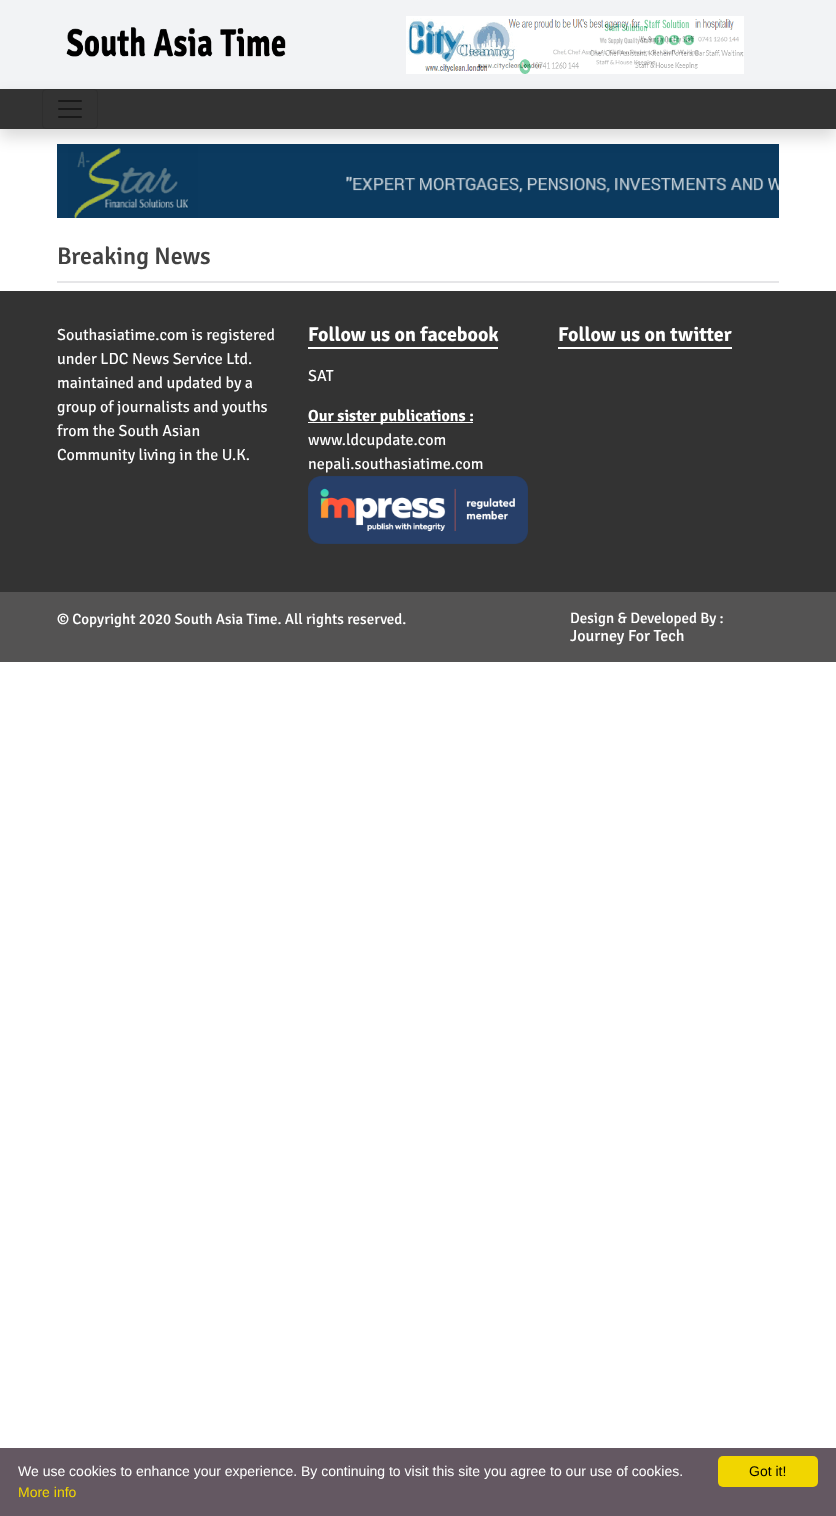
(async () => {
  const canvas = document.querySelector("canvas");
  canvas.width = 836;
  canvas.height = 1516;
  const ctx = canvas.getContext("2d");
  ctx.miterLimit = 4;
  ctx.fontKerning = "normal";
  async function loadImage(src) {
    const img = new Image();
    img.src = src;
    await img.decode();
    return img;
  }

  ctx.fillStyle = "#ffffff";
  ctx.fillRect(0, 0, 836, 1516);
  ctx.fillStyle = "#f2f3f5";
  ctx.fillRect(0, 0, 836, 89);
  ctx.drawImage(await loadImage("img/1.png"), 66, 27, 220, 30);
  ctx.drawImage(await loadImage("img/2.png"), 406, 16, 338, 58);
  ctx.drawImage(await loadImage("img/4.png"), 57, 144, 722, 74);
  ctx.fillStyle = "rgba(0, 0, 0, 0.15)";
  ctx.filter = "blur(8px)";
  ctx.beginPath();
  ctx.rect(0, 97, 836, 40);
  ctx.fill();
  ctx.filter = "none";
  ctx.fillStyle = "#333333";
  ctx.fillRect(0, 89, 836, 40);
  ctx.beginPath();
  ctx.roundRect(42.5, 89.5, 55, 39, 3.5);
  ctx.strokeStyle = "#2e2e2e";
  ctx.stroke();
  ctx.drawImage(await loadImage("img/3.png"), 58, 100, 24, 18);
  for (const [x, y, w, h, color] of [
    [57, 281, 722, 2, "#e6e6e8"],
    [0, 291, 836, 301, "#333333"],
    [308, 347, 190, 2, "#ffffff"],
    [308, 422, 165, 1, "#ffffff"],
  ]) {
    ctx.fillStyle = color;
    ctx.fillRect(x, y, w, h);
  }
  ctx.drawImage(await loadImage("img/5.png"), 308, 476, 220, 68);
  for (const [x, y, w, h, color] of [
    [558, 347, 174, 2, "#ffffff"],
    [0, 592, 836, 70, "#545353"],
    [0, 1448, 836, 68, "#645862"],
  ]) {
    ctx.fillStyle = color;
    ctx.fillRect(x, y, w, h);
  }
  ctx.fillStyle = "#f1d600";
  ctx.beginPath();
  ctx.roundRect(718, 1456, 100, 31, 5);
  ctx.fill();
  ctx.font = "600 24px Signika Negative";
  ctx.fillStyle = "#424242";
  ctx.fillText("Breaking News", 57, 264);
  ctx.font = "16px Signika Negative";
  ctx.fillStyle = "#ffffff";
  for (const [text, x, y] of [
    ["Southasiatime.com is registered", 57, 340],
    ["under LDC News Service Ltd.", 57, 364],
    ["maintained and updated by a", 57, 388],
    ["group of journalists and youths", 57, 412],
    ["from the South Asian", 57, 436],
    ["Community living in the U.K.", 57, 460],
  ]) {
    ctx.fillText(text, x, y);
  }
  ctx.font = "bold 20px Signika Negative";
  ctx.fillText("Follow us on facebook", 308, 341);
  ctx.font = "16px Signika Negative";
  ctx.fillText("SAT", 308, 381);
  ctx.font = "bold 16px Signika Negative";
  ctx.fillText("Our sister publications :", 308, 421);
  ctx.font = "16px Signika Negative";
  ctx.fillText("www.ldcupdate.com", 308, 445);
  ctx.fillText("nepali.southasiatime.com", 308, 469);
  ctx.font = "bold 20px Signika Negative";
  ctx.fillText("Follow us on twitter", 558, 341);
  ctx.font = "500 15px Signika Negative";
  ctx.fillText("© Copyright 2020 South Asia Time. All rights reserved.", 57, 624);
  ctx.fillText("Design & Developed By :", 570, 623);
  ctx.font = "500 16px Signika Negative";
  ctx.fillText("Journey For Tech", 570, 641);
  ctx.font = "14px Liberation Sans";
  ctx.fillText("We use cookies to enhance your experience. By continuing to visit this site you agree to our use of cookies.", 18, 1476);
  ctx.fillStyle = "#f1d600";
  ctx.fillText("More info", 18, 1497);
  ctx.fillStyle = "#000000";
  ctx.fillText("Got it!", 749, 1476);
})();
